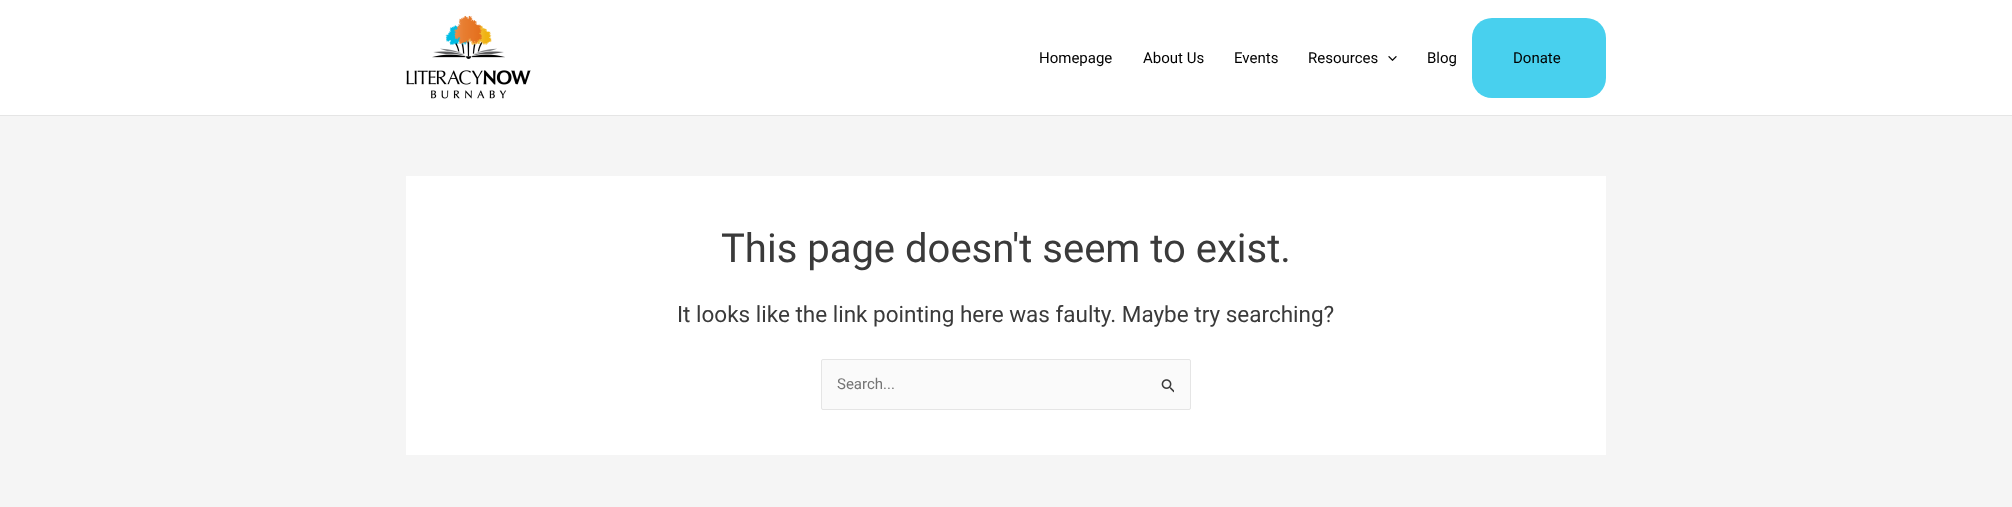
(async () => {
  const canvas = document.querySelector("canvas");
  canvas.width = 2012;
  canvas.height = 507;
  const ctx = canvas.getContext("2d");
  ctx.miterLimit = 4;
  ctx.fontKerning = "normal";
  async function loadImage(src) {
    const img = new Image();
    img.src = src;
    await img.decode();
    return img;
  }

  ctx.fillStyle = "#f5f5f5";
  ctx.fillRect(0, 0, 2012, 507);
  ctx.fillStyle = "#ffffff";
  ctx.fillRect(0, 0, 2012, 115);
  ctx.fillStyle = "#e5e5e5";
  ctx.fillRect(0, 115, 2012, 1);
  ctx.drawImage(await loadImage("img/1.png"), 406, 15, 125, 84);
  ctx.drawImage(await loadImage("img/2.png"), 1388, 56, 9, 5);
  ctx.fillStyle = "#48d0ee";
  ctx.beginPath();
  ctx.roundRect(1472, 18, 134, 80, 20);
  ctx.fill();
  ctx.fillStyle = "#ffffff";
  ctx.fillRect(406, 176, 1200, 279);
  ctx.fillStyle = "#fafafa";
  ctx.beginPath();
  ctx.roundRect(821.5, 359.5, 369, 50, 1.5);
  ctx.fill();
  ctx.strokeStyle = "#e5e5e5";
  ctx.stroke();
  ctx.drawImage(await loadImage("img/3.png"), 1161, 379, 13, 14);
  ctx.font = "15px Roboto";
  ctx.fillStyle = "#000000";
  for (const [text, x, y] of [
    ["Homepage", 1039, 63],
    ["About Us", 1143, 63],
    ["Events", 1234, 63],
    ["Resources", 1308, 63],
    ["Blog", 1427, 63],
    ["Donate", 1513, 63],
  ]) {
    ctx.fillText(text, x, y);
  }
  ctx.font = "40px Roboto";
  ctx.fillStyle = "#3a3a3a";
  ctx.fillText("This page doesn't seem to exist.", 721, 262);
  ctx.font = "22.5px Roboto";
  ctx.fillText("It looks like the link pointing here was faulty. Maybe try searching?", 677, 322);
  ctx.font = "15px Roboto";
  ctx.fillStyle = "#757575";
  ctx.fillText("Search...", 837, 389);
})();
